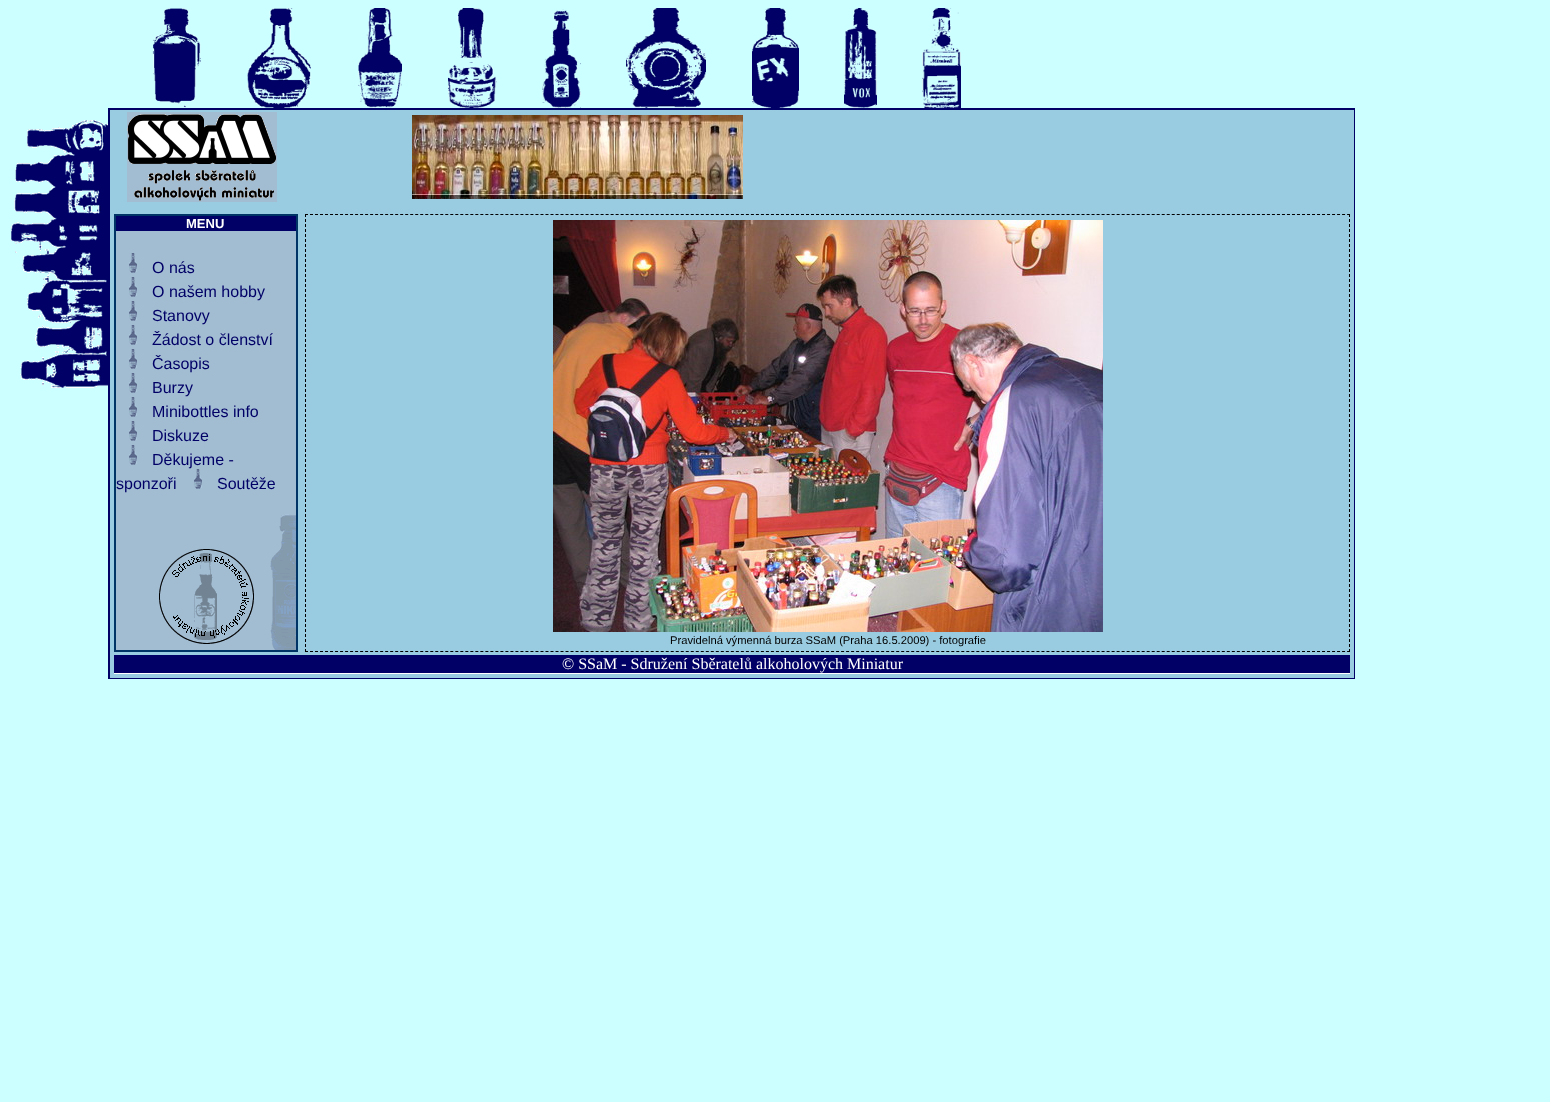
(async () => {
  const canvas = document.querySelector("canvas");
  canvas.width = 1550;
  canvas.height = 1102;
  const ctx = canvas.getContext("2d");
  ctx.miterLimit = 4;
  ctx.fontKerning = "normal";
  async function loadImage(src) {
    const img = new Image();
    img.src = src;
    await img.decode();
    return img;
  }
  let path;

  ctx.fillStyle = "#ccffff";
  ctx.fillRect(0, 0, 1550, 1102);
  ctx.drawImage(await loadImage("img/1.png"), 152, 8, 49, 100);
  ctx.drawImage(await loadImage("img/2.png"), 247, 8, 65, 100);
  ctx.drawImage(await loadImage("img/3.png"), 358, 8, 44, 100);
  ctx.drawImage(await loadImage("img/4.png"), 448, 8, 49, 100);
  ctx.drawImage(await loadImage("img/5.png"), 542, 9, 39, 99);
  ctx.drawImage(await loadImage("img/6.png"), 626, 8, 80, 100);
  ctx.drawImage(await loadImage("img/7.png"), 752, 8, 47, 100);
  ctx.drawImage(await loadImage("img/8.png"), 844, 8, 33, 100);
  ctx.drawImage(await loadImage("img/9.png"), 922, 8, 39, 100);
  ctx.drawImage(await loadImage("img/10.png"), 11, 120, 97, 268);
  for (const [x, y, w, h, color] of [
    [110, 110, 1244, 568, "#99cce1"],
    [108, 108, 1247, 2, "#000066"],
    [1354, 108, 1, 571, "#000066"],
    [108, 678, 1247, 1, "#000066"],
    [108, 108, 2, 571, "#000066"],
  ]) {
    ctx.fillStyle = color;
    ctx.fillRect(x, y, w, h);
  }
  ctx.drawImage(await loadImage("img/11.png"), 127, 112, 150, 90);
  ctx.drawImage(await loadImage("img/12.png"), 412, 115, 331, 84);
  ctx.fillStyle = "#a2bcd2";
  ctx.fillRect(116, 231, 180, 419);
  ctx.drawImage(await loadImage("img/13.png"), 270, 514, 26, 136);
  ctx.strokeStyle = "#003366";
  ctx.lineWidth = 2;
  ctx.strokeRect(115, 215, 182, 436);
  ctx.fillStyle = "#000066";
  ctx.fillRect(116, 216, 180, 15);
  ctx.drawImage(await loadImage("img/14.png"), 129, 253, 8, 20);
  ctx.drawImage(await loadImage("img/14.png"), 129, 277, 8, 20);
  ctx.drawImage(await loadImage("img/14.png"), 129, 301, 8, 20);
  ctx.drawImage(await loadImage("img/14.png"), 129, 325, 8, 20);
  ctx.drawImage(await loadImage("img/14.png"), 129, 349, 8, 20);
  ctx.drawImage(await loadImage("img/14.png"), 129, 373, 8, 20);
  ctx.drawImage(await loadImage("img/14.png"), 129, 397, 8, 20);
  ctx.drawImage(await loadImage("img/14.png"), 129, 421, 8, 20);
  ctx.drawImage(await loadImage("img/14.png"), 129, 445, 8, 20);
  ctx.drawImage(await loadImage("img/14.png"), 194, 469, 8, 20);
  ctx.drawImage(await loadImage("img/15.png"), 159, 549, 95, 95);
  path = new Path2D("M305 214.5H1350");
  ctx.strokeStyle = "#000000";
  ctx.lineWidth = 1;
  ctx.setLineDash([3, 2.01]);
  ctx.stroke(path);
  path = new Path2D("M1349.5 214V652");
  ctx.setLineDash([3, 2]);
  ctx.stroke(path);
  path = new Path2D("M305 651.5H1350");
  ctx.setLineDash([3, 2.01]);
  ctx.stroke(path);
  path = new Path2D("M305.5 214V652");
  ctx.setLineDash([3, 2]);
  ctx.stroke(path);
  ctx.drawImage(await loadImage("img/16.png"), 553, 220, 550, 412);
  ctx.fillRect(114, 655, 1236, 18);
  ctx.fillStyle = "#ffffff";
  ctx.fillRect(114, 673, 1236, 1);
  ctx.font = "bold 13px Liberation Sans";
  ctx.fillText("MENU", 186, 228);
  ctx.font = "16px Liberation Sans";
  ctx.fillStyle = "#000066";
  for (const [text, x, y] of [
    ["O nás", 152, 273],
    ["O našem hobby", 152, 297],
    ["Stanovy", 152, 321],
    ["Žádost o členství", 152, 345],
    ["Časopis", 152, 369],
    ["Burzy", 152, 393],
    ["Minibottles info", 152, 417],
    ["Diskuze", 152, 441],
    ["Děkujeme -", 152, 465],
    ["sponzoři", 116, 489],
    ["Soutěže", 217, 489],
  ]) {
    ctx.fillText(text, x, y);
  }
  ctx.font = "11.2px Liberation Sans";
  ctx.fillStyle = "#000000";
  ctx.fillText("Pravidelná výmenná burza SSaM (Praha 16.5.2009) - fotografie", 670, 644);
  ctx.font = "16px Liberation Serif";
  ctx.fillStyle = "#ffffff";
  ctx.fillText("© SSaM - Sdružení Sběratelů alkoholových Miniatur", 562, 669);
})();
